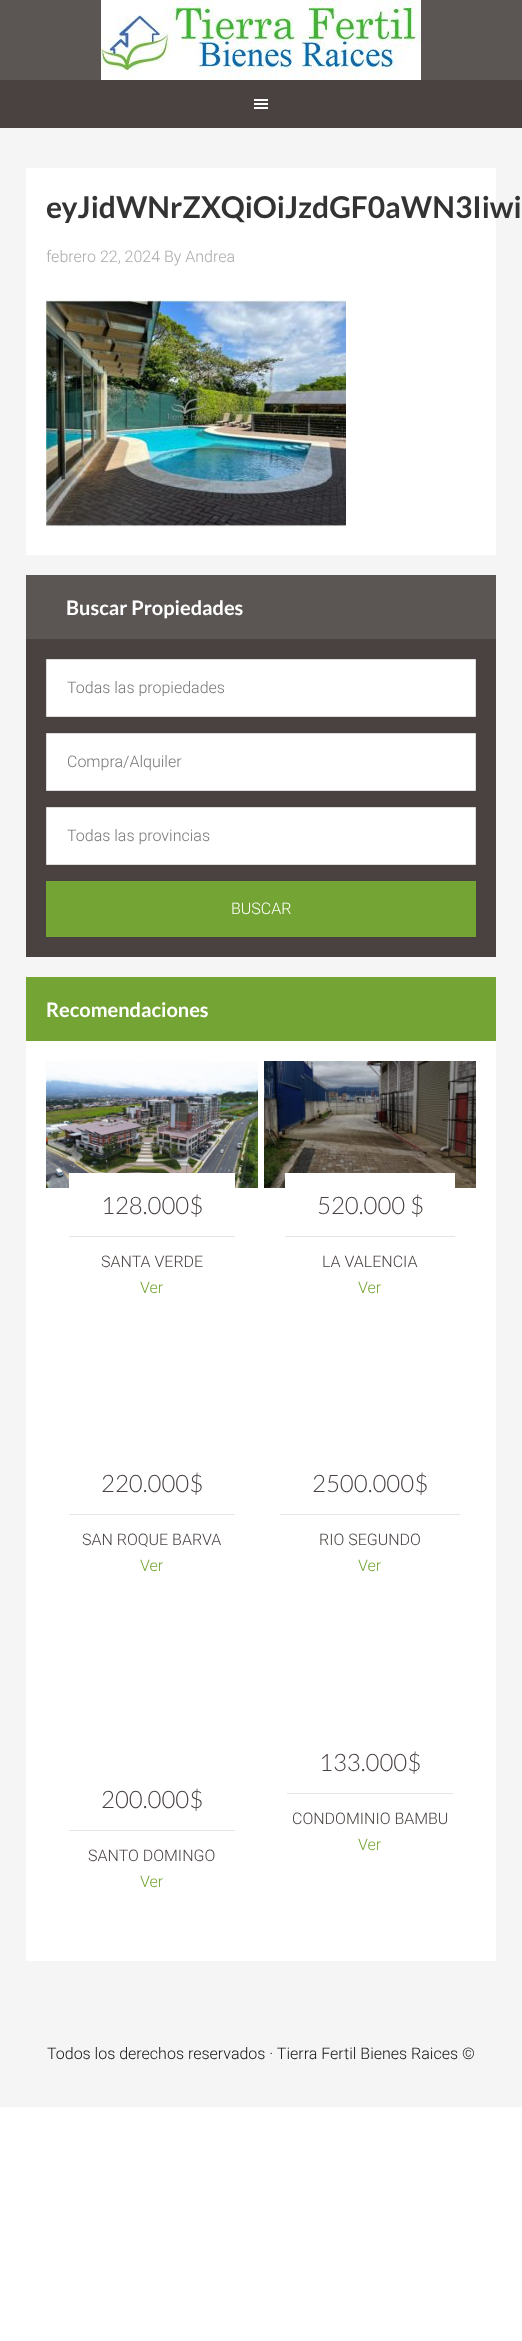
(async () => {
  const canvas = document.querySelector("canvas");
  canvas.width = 522;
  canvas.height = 2341;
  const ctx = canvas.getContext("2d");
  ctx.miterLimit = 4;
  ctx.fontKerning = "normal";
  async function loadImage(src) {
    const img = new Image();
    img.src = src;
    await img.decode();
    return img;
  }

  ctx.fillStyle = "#ffffff";
  ctx.fillRect(0, 0, 522, 2341);
  ctx.fillStyle = "#494241";
  ctx.fillRect(0, 80, 522, 48);
  ctx.fillStyle = "#5b5554";
  ctx.fillRect(0, 0, 522, 80);
  ctx.drawImage(await loadImage("img/1.png"), 101, 0, 320, 80);
  ctx.drawImage(await loadImage("img/2.png"), 254, 99, 14, 10);
  ctx.fillStyle = "#f5f5f5";
  ctx.fillRect(0, 128, 522, 1979);
  ctx.fillStyle = "#ffffff";
  ctx.fillRect(26, 168, 470, 387);
  ctx.drawImage(await loadImage("img/3.png"), 46, 300, 300, 227);
  ctx.fillStyle = "#494241";
  ctx.fillRect(26, 639, 470, 318);
  ctx.fillStyle = "#5b5554";
  ctx.fillRect(26, 575, 470, 64);
  ctx.fillStyle = "#ffffff";
  ctx.beginPath();
  ctx.rect(46.5, 659.5, 429, 57);
  ctx.fill();
  ctx.strokeStyle = "#dddddd";
  ctx.stroke();
  ctx.beginPath();
  ctx.rect(46.5, 733.5, 429, 57);
  ctx.fill();
  ctx.stroke();
  ctx.beginPath();
  ctx.rect(46.5, 807.5, 429, 57);
  ctx.fill();
  ctx.stroke();
  for (const [x, y, w, h, color] of [
    [46, 881, 430, 56, "#74a534"],
    [26, 1041, 470, 920, "#ffffff"],
    [26, 977, 470, 64, "#74a534"],
  ]) {
    ctx.fillStyle = color;
    ctx.fillRect(x, y, w, h);
  }
  ctx.drawImage(await loadImage("img/4.png"), 46, 1061, 212, 127);
  ctx.fillStyle = "#ffffff";
  ctx.fillRect(69, 1173, 166, 15);
  ctx.fillStyle = "#e5e5e5";
  ctx.fillRect(69, 1236, 166, 1);
  ctx.drawImage(await loadImage("img/5.png"), 264, 1061, 212, 127);
  for (const [x, y, w, h, color] of [
    [285, 1173, 170, 15, "#ffffff"],
    [285, 1236, 170, 1, "#e5e5e5"],
    [69, 1514, 166, 1, "#e5e5e5"],
    [280, 1514, 180, 1, "#e5e5e5"],
    [69, 1830, 166, 1, "#e5e5e5"],
    [287, 1793, 166, 1, "#e5e5e5"],
  ]) {
    ctx.fillStyle = color;
    ctx.fillRect(x, y, w, h);
  }
  ctx.font = "bold 30px Lato";
  ctx.fillStyle = "#333333";
  ctx.fillText("eyJidWNrZXQiOiJzdGF0aWN3Iiwi", 46, 218);
  ctx.font = "300 16px Roboto";
  ctx.fillStyle = "#aaaaaa";
  ctx.fillText("febrero 22, 2024 By Andrea", 46, 262);
  ctx.font = "bold 20px Lato";
  ctx.fillStyle = "#ffffff";
  ctx.fillText("Buscar Propiedades", 66, 615);
  ctx.save();
  ctx.beginPath();
  ctx.rect(67, 680, 388, 16);
  ctx.clip();
  ctx.font = "300 16px Roboto";
  ctx.fillStyle = "#777777";
  ctx.fillText("Todas las propiedades", 67, 693);
  ctx.restore();
  ctx.font = "300 16px Roboto";
  ctx.fillStyle = "#777777";
  ctx.fillText("Compra/Alquiler", 67, 767);
  ctx.fillText("Todas las provincias", 67, 841);
  ctx.fillStyle = "#ffffff";
  ctx.fillText("BUSCAR", 231, 914);
  ctx.font = "bold 20px Lato";
  ctx.fillText("Recomendaciones", 46, 1017);
  ctx.font = "300 24px Lato";
  ctx.fillStyle = "#494241";
  ctx.fillText("128.000$", 101, 1214);
  ctx.font = "300 16px Roboto";
  ctx.fillText("SANTA VERDE", 101, 1267);
  ctx.fillStyle = "#74a534";
  ctx.fillText("Ver", 140, 1293);
  ctx.font = "300 24px Lato";
  ctx.fillStyle = "#494241";
  ctx.fillText("520.000 $", 317, 1214);
  ctx.font = "300 16px Roboto";
  ctx.fillText("LA VALENCIA", 322, 1267);
  ctx.fillStyle = "#74a534";
  ctx.fillText("Ver", 358, 1293);
  ctx.font = "300 24px Lato";
  ctx.fillStyle = "#494241";
  ctx.fillText("220.000$", 101, 1492);
  ctx.font = "300 16px Roboto";
  ctx.fillText("SAN ROQUE BARVA", 82, 1545);
  ctx.fillStyle = "#74a534";
  ctx.fillText("Ver", 140, 1571);
  ctx.font = "300 24px Lato";
  ctx.fillStyle = "#494241";
  ctx.fillText("2500.000$", 312, 1492);
  ctx.font = "300 16px Roboto";
  ctx.fillText("RIO SEGUNDO", 319, 1545);
  ctx.fillStyle = "#74a534";
  ctx.fillText("Ver", 358, 1571);
  ctx.font = "300 24px Lato";
  ctx.fillStyle = "#494241";
  ctx.fillText("200.000$", 101, 1808);
  ctx.font = "300 16px Roboto";
  ctx.fillText("SANTO DOMINGO", 88, 1861);
  ctx.fillStyle = "#74a534";
  ctx.fillText("Ver", 140, 1887);
  ctx.font = "300 24px Lato";
  ctx.fillStyle = "#494241";
  ctx.fillText("133.000$", 319, 1771);
  ctx.font = "300 16px Roboto";
  ctx.fillText("CONDOMINIO BAMBU", 292, 1824);
  ctx.fillStyle = "#74a534";
  ctx.fillText("Ver", 358, 1850);
  ctx.fillStyle = "#111111";
  ctx.fillText("Todos los derechos reservados · Tierra Fertil Bienes Raices ©", 47, 2059);
})();
